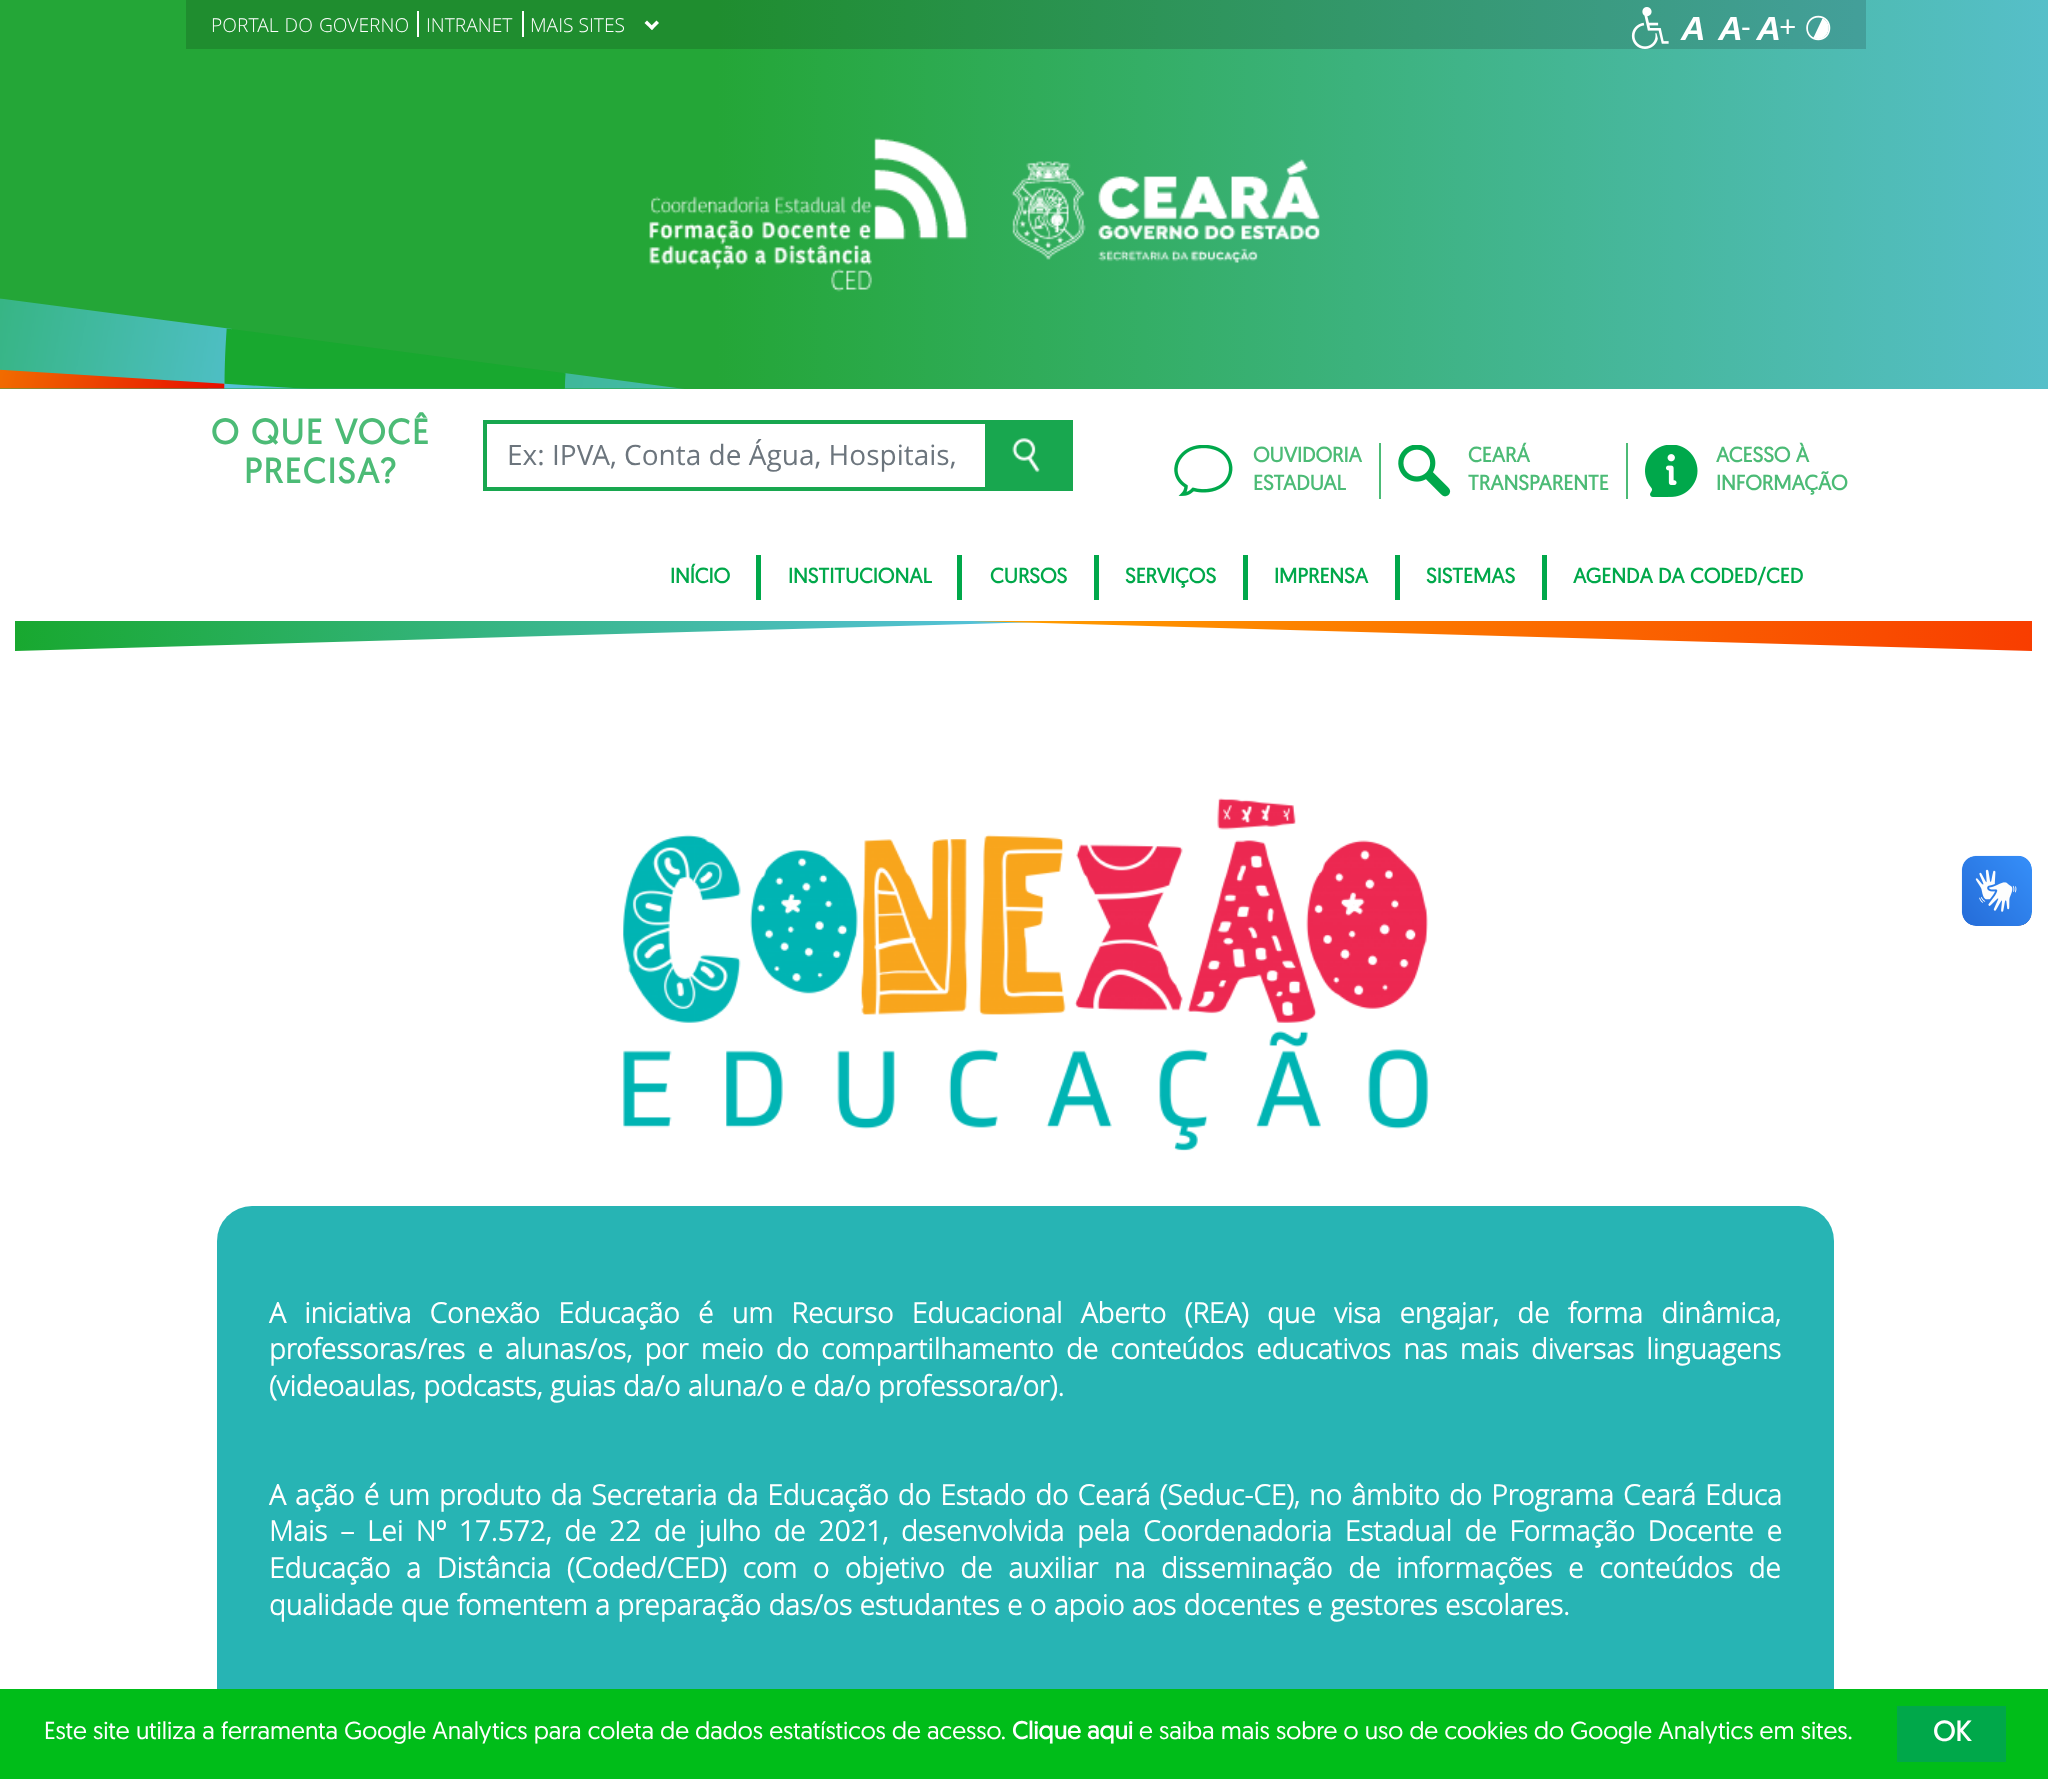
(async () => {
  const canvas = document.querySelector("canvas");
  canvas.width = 2048;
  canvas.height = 1779;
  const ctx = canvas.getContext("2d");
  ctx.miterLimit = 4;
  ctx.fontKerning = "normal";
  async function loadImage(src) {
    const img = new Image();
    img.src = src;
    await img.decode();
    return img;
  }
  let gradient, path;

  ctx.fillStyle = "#ffffff";
  ctx.fillRect(0, 0, 2048, 1779);
  gradient = ctx.createLinearGradient(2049, 327, 0, 327);
  gradient.addColorStop(0, "#56bfc9");
  gradient.addColorStop(0.65, "#24a637");
  ctx.fillStyle = gradient;
  ctx.fillRect(0, 0, 2048, 389);
  gradient = ctx.createLinearGradient(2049, 327, 0, 327);
  gradient.addColorStop(0, "#49a2ab");
  gradient.addColorStop(0.65, "#1f8d2f");
  ctx.fillStyle = gradient;
  ctx.fillRect(186, 0, 1680, 49);
  ctx.drawImage(await loadImage("img/1.png"), 0, 298, 684, 91);
  ctx.fillStyle = "#ffffff";
  ctx.fillRect(417, 11, 2, 26);
  ctx.fillRect(522, 11, 2, 26);
  path = new Path2D("M656.5 20.5L659 23L652 30L649.5 27.5Z");
  ctx.fill(path);
  path = new Path2D("M647 20.5L654 27.5L652 30L644.5 23Z");
  ctx.fill(path);
  ctx.drawImage(await loadImage("img/2.png"), 1631, 7, 38, 42);
  ctx.drawImage(await loadImage("img/3.png"), 1680, 17, 24, 23);
  ctx.drawImage(await loadImage("img/4.png"), 1717, 17, 33, 23);
  ctx.drawImage(await loadImage("img/5.png"), 1755, 17, 40, 23);
  ctx.drawImage(await loadImage("img/6.png"), 1806, 15, 25, 26);
  ctx.drawImage(await loadImage("img/7.png"), 649, 137, 671, 155);
  for (const [x, y, w, h, color] of [
    [483, 420, 502, 4, "#18a74f"],
    [483, 487, 502, 4, "#18a74f"],
    [483, 420, 4, 70, "#18a74f"],
    [985, 420, 88, 71, "#18a74f"],
  ]) {
    ctx.fillStyle = color;
    ctx.fillRect(x, y, w, h);
  }
  ctx.drawImage(await loadImage("img/8.png"), 1012, 438, 28, 35);
  ctx.fillStyle = "#4cbb76";
  ctx.fillRect(1379, 443, 2, 56);
  ctx.drawImage(await loadImage("img/9.png"), 1174, 445, 59, 51);
  ctx.fillRect(1626, 443, 2, 56);
  ctx.drawImage(await loadImage("img/10.png"), 1398, 445, 53, 52);
  ctx.drawImage(await loadImage("img/11.png"), 1645, 445, 53, 52);
  for (const [x, y, w, h, color] of [
    [756, 555, 5, 45, "#00a84a"],
    [957, 555, 5, 45, "#00a84a"],
    [1094, 555, 5, 45, "#00a84a"],
    [1243, 555, 5, 45, "#00a84a"],
    [1395, 555, 5, 45, "#00a84a"],
    [1542, 555, 5, 45, "#00a84a"],
  ]) {
    ctx.fillStyle = color;
    ctx.fillRect(x, y, w, h);
  }
  gradient = ctx.createLinearGradient(14, 646, 1076, 646);
  gradient.addColorStop(0, "#18a82f");
  gradient.addColorStop(1, "#5bc4e8");
  ctx.fillStyle = gradient;
  path = new Path2D("M15 621V651L1076 621Z");
  ctx.fill(path);
  gradient = ctx.createLinearGradient(2034, 626, 972, 626);
  gradient.addColorStop(0, "#f83d00");
  gradient.addColorStop(1, "#ffa100");
  ctx.fillStyle = gradient;
  path = new Path2D("M972 621L2032 651V621Z");
  ctx.fill(path);
  ctx.drawImage(await loadImage("img/12.png"), 623, 798, 806, 353);
  ctx.fillStyle = "#27b4b4";
  ctx.beginPath();
  ctx.roundRect(217, 1206, 1617, 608, 35);
  ctx.fill();
  ctx.drawImage(await loadImage("img/13.png"), 1961, 855, 71, 71);
  ctx.drawImage(await loadImage("img/14.png"), 1962, 856, 70, 70);
  ctx.fillStyle = "#00bd19";
  ctx.fillRect(0, 1689, 2048, 90);
  ctx.fillStyle = "#00a84a";
  ctx.fillRect(1897, 1706, 109, 56);
  ctx.wordSpacing = "1px";
  ctx.font = "300 19.25px Open Sans";
  ctx.fillStyle = "#ffffff";
  ctx.fillText("PORTAL DO GOVERNO", 211, 32);
  ctx.wordSpacing = "0px";
  ctx.fillText("INTRANET", 426, 32);
  ctx.fillText("MAIS SITES", 530, 32);
  ctx.letterSpacing = "1.75px";
  ctx.font = "bold 35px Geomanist";
  ctx.fillStyle = "#4cbb76";
  ctx.fillText("O QUE VOCÊ", 211, 444);
  ctx.fillText("PRECISA?", 244, 483);
  ctx.letterSpacing = "0px";
  ctx.font = "28px Open Sans";
  ctx.fillStyle = "#6c757d";
  ctx.fillText("Ex: IPVA, Conta de Água, Hospitais,", 507, 465);
  ctx.font = "bold 21px Geomanist";
  ctx.fillStyle = "#4cbb76";
  for (const [text, x, y] of [
    ["OUVIDORIA", 1253, 462],
    ["ESTADUAL", 1253, 490],
    ["CEARÁ", 1468, 462],
    ["TRANSPARENTE", 1468, 490],
    ["ACESSO À", 1716, 462],
    ["INFORMAÇÃO", 1716, 490],
  ]) {
    ctx.fillText(text, x, y);
  }
  ctx.fillStyle = "#00a84a";
  for (const [text, x, y] of [
    ["INÍCIO", 670, 583],
    ["INSTITUCIONAL", 788, 583],
    ["CURSOS", 990, 583],
    ["SERVIÇOS", 1125, 583],
    ["IMPRENSA", 1274, 583],
    ["SISTEMAS", 1426, 583],
    ["AGENDA DA CODED/CED", 1573, 583],
  ]) {
    ctx.fillText(text, x, y);
  }
  ctx.wordSpacing = "11.1px";
  ctx.font = "bold 28px Open Sans";
  ctx.fillStyle = "#ffffff";
  ctx.fillText("A iniciativa Conexão Educação é um Recurso Educacional Aberto (REA) que visa engajar, de forma dinâmica,", 269, 1323);
  ctx.wordSpacing = "5px";
  ctx.fillText("professoras/res e alunas/os, por meio do compartilhamento de conteúdos educativos nas mais diversas linguagens", 269, 1359);
  ctx.wordSpacing = "0.2px";
  ctx.fillText("(videoaulas, podcasts, guias da/o aluna/o e da/o professora/or).", 269, 1396);
  ctx.wordSpacing = "2px";
  ctx.fillText("A ação é um produto da Secretaria da Educação do Estado do Ceará (Seduc-CE), no âmbito do Programa Ceará Educa", 269, 1505);
  ctx.wordSpacing = "5.5px";
  ctx.fillText("Mais – Lei Nº 17.572, de 22 de julho de 2021, desenvolvida pela Coordenadoria Estadual de Formação Docente e", 269, 1541);
  ctx.wordSpacing = "8.5px";
  ctx.fillText("Educação a Distância (Coded/CED) com o objetivo de auxiliar na disseminação de informações e conteúdos de", 269, 1578);
  ctx.wordSpacing = "0.2px";
  ctx.fillText("qualidade que fomentem a preparação das/os estudantes e o apoio aos docentes e gestores escolares.", 269, 1615);
  ctx.wordSpacing = "0px";
  ctx.font = "24.5px Geomanist";
  ctx.fillText("Este site utiliza a ferramenta Google Analytics para coleta de dados estatísticos de acesso.", 44, 1739);
  ctx.font = "bold 24.5px Geomanist";
  ctx.fillText("Clique aqui", 1012, 1739);
  ctx.font = "24.5px Geomanist";
  ctx.fillText("e saiba mais sobre o uso de cookies do Google Analytics em sites.", 1139, 1739);
  ctx.font = "bold 28px Geomanist";
  ctx.fillText("OK", 1933, 1741);
})();
